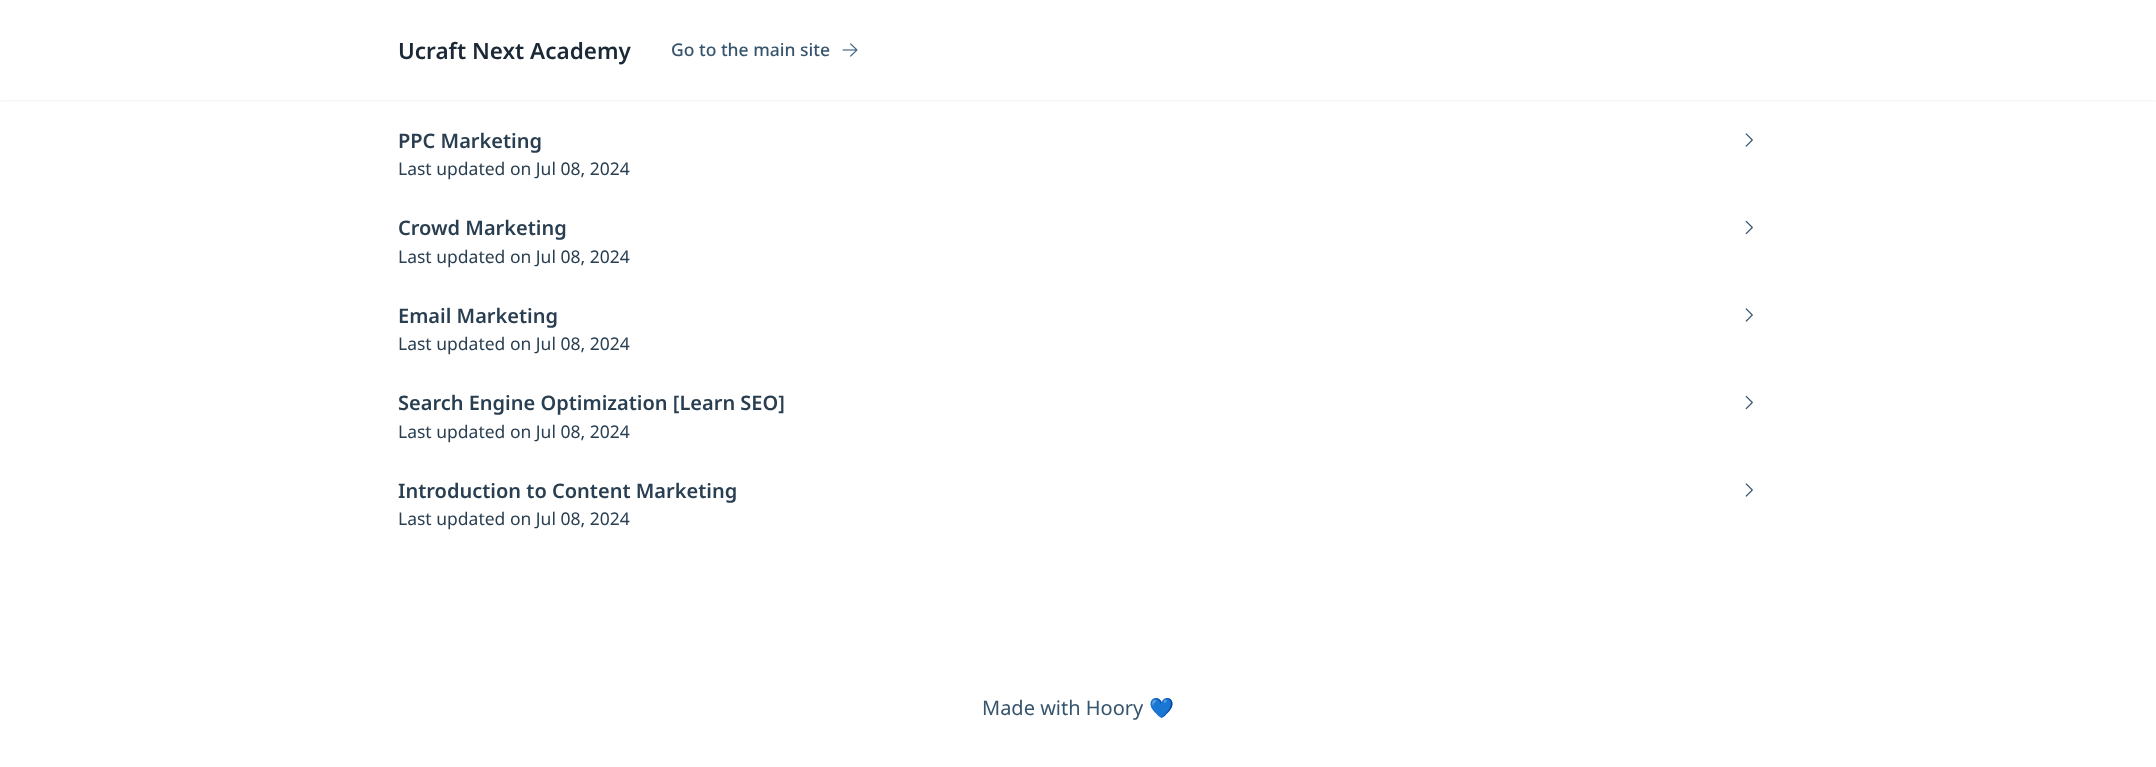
(async () => {
  const canvas = document.querySelector("canvas");
  canvas.width = 2156;
  canvas.height = 767;
  const ctx = canvas.getContext("2d");
  ctx.miterLimit = 4;
  ctx.fontKerning = "normal";
  async function loadImage(src) {
    const img = new Image();
    img.src = src;
    await img.decode();
    return img;
  }

  ctx.fillStyle = "#ffffff";
  ctx.fillRect(0, 0, 2156, 767);
  ctx.fillStyle = "rgba(0, 0, 0, 0.05)";
  ctx.filter = "blur(1px)";
  ctx.beginPath();
  ctx.rect(0, 1, 2156, 100);
  ctx.fill();
  ctx.filter = "none";
  ctx.fillStyle = "#ffffff";
  ctx.fillRect(0, 0, 2156, 100);
  ctx.drawImage(await loadImage("img/1.png"), 842, 43, 16, 14);
  ctx.drawImage(await loadImage("img/2.png"), 1745, 133, 8, 14);
  ctx.drawImage(await loadImage("img/3.png"), 1745, 220, 8, 15);
  ctx.drawImage(await loadImage("img/2.png"), 1745, 308, 8, 14);
  ctx.drawImage(await loadImage("img/3.png"), 1745, 395, 8, 15);
  ctx.drawImage(await loadImage("img/2.png"), 1745, 483, 8, 14);
  ctx.font = "600 22.5px Noto Sans";
  ctx.fillStyle = "#1b2836";
  ctx.fillText("Ucraft Next Academy", 398, 59);
  ctx.font = "500 17.5px Noto Sans";
  ctx.fillStyle = "#37546d";
  ctx.fillText("Go to the main site", 671, 56);
  ctx.font = "600 20px Noto Sans";
  ctx.fillStyle = "#293f51";
  ctx.fillText("PPC Marketing", 398, 148);
  ctx.font = "17.5px Noto Sans";
  ctx.fillText("Last updated on Jul 08, 2024", 398, 175);
  ctx.font = "600 20px Noto Sans";
  ctx.fillText("Crowd Marketing", 398, 235);
  ctx.font = "17.5px Noto Sans";
  ctx.fillText("Last updated on Jul 08, 2024", 398, 263);
  ctx.font = "600 20px Noto Sans";
  ctx.fillText("Email Marketing", 398, 323);
  ctx.font = "17.5px Noto Sans";
  ctx.fillText("Last updated on Jul 08, 2024", 398, 350);
  ctx.font = "600 20px Noto Sans";
  ctx.fillText("Search Engine Optimization [Learn SEO]", 398, 410);
  ctx.font = "17.5px Noto Sans";
  ctx.fillText("Last updated on Jul 08, 2024", 398, 438);
  ctx.font = "600 20px Noto Sans";
  ctx.fillText("Introduction to Content Marketing", 398, 498);
  ctx.font = "17.5px Noto Sans";
  ctx.fillText("Last updated on Jul 08, 2024", 398, 525);
  ctx.font = "20px Noto Sans";
  ctx.fillStyle = "#37546d";
  ctx.fillText("Made with Hoory", 982, 715);
  ctx.font = "20px Noto Color Emoji";
  ctx.fillText("💙", 1149, 715);
})();
